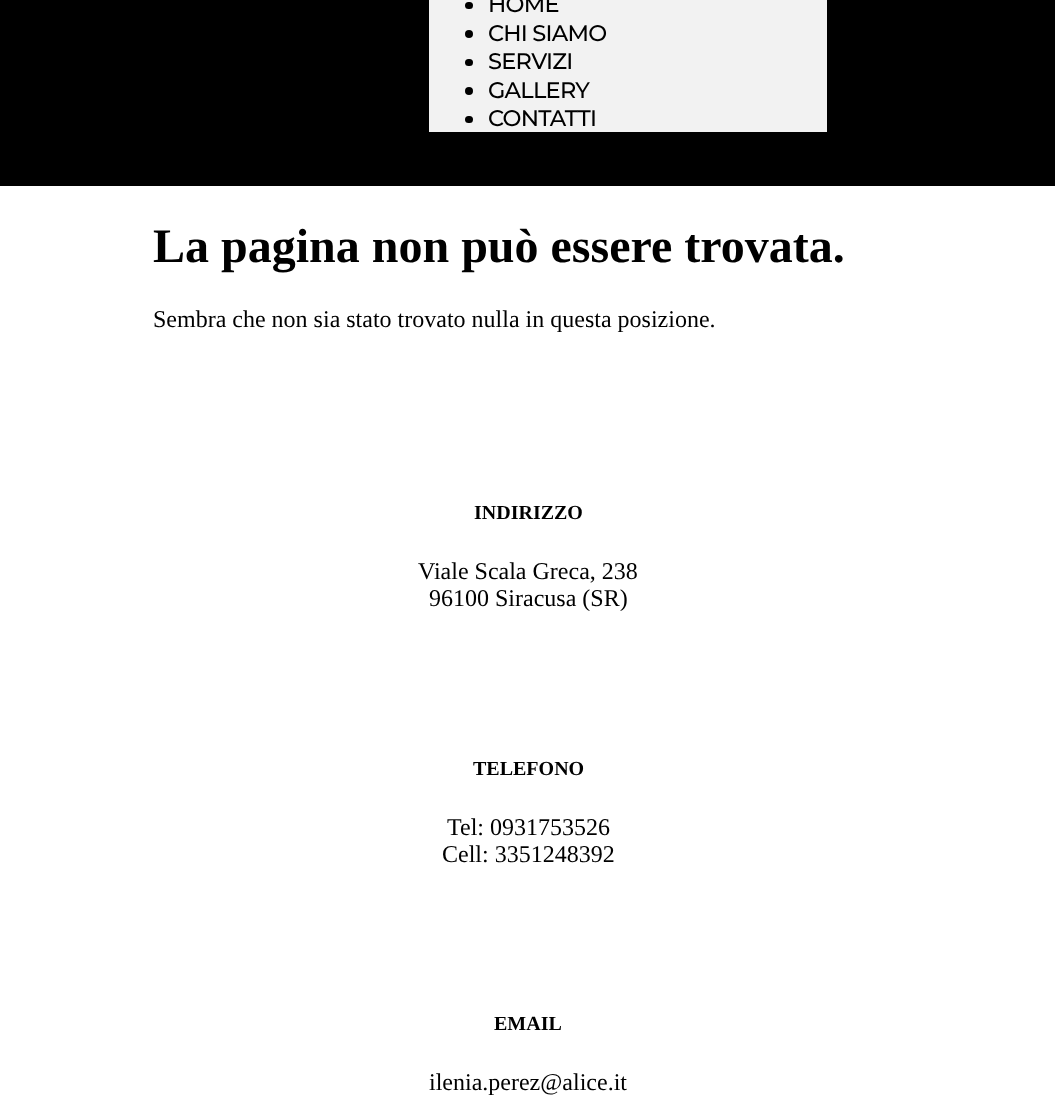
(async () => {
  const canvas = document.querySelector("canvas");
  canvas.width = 1055;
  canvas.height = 1108;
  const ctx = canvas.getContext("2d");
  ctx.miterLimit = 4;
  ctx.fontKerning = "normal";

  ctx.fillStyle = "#ffffff";
  ctx.fillRect(0, 0, 1055, 1108);
  ctx.fillStyle = "#000000";
  ctx.fillRect(0, 0, 1055, 186);
  ctx.fillStyle = "#f2f2f2";
  ctx.fillRect(429, 0, 398, 132);
  ctx.fillStyle = "#000000";
  ctx.beginPath();
  ctx.roundRect(465, 2, 8, 7, 3.5);
  ctx.fill();
  ctx.beginPath();
  ctx.arc(469, 34, 4, 0, Math.PI * 2);
  ctx.fill();
  ctx.beginPath();
  ctx.roundRect(465, 59, 8, 7, 3.5);
  ctx.fill();
  ctx.beginPath();
  ctx.arc(469, 91, 4, 0, Math.PI * 2);
  ctx.fill();
  ctx.beginPath();
  ctx.roundRect(465, 116, 8, 7, 3.5);
  ctx.fill();
  ctx.letterSpacing = "-0.75px";
  ctx.font = "500 22.5px Montserrat";
  for (const [text, x, y] of [
    ["HOME", 488, 12],
    ["CHI SIAMO", 488, 41],
    ["SERVIZI", 488, 69],
    ["GALLERY", 488, 98],
    ["CONTATTI", 488, 126],
  ]) {
    ctx.fillText(text, x, y);
  }
  ctx.letterSpacing = "0px";
  ctx.font = "bold 48px Liberation Serif";
  ctx.fillText("La pagina non può essere trovata.", 153, 262);
  ctx.font = "24px Liberation Serif";
  ctx.fillText("Sembra che non sia stato trovato nulla in questa posizione.", 153, 327);
  ctx.font = "bold 20px Liberation Serif";
  ctx.fillText("INDIRIZZO", 474, 519);
  ctx.font = "24px Liberation Serif";
  ctx.fillText("Viale Scala Greca, 238", 418, 579);
  ctx.fillText("96100 Siracusa (SR)", 429, 606);
  ctx.font = "bold 20px Liberation Serif";
  ctx.fillText("TELEFONO", 473, 775);
  ctx.font = "24px Liberation Serif";
  ctx.fillText("Tel: 0931753526", 447, 835);
  ctx.fillText("Cell: 3351248392", 442, 862);
  ctx.font = "bold 20px Liberation Serif";
  ctx.fillText("EMAIL", 494, 1030);
  ctx.font = "24px Liberation Serif";
  ctx.fillText("ilenia.perez@alice.it", 429, 1090);
})();
